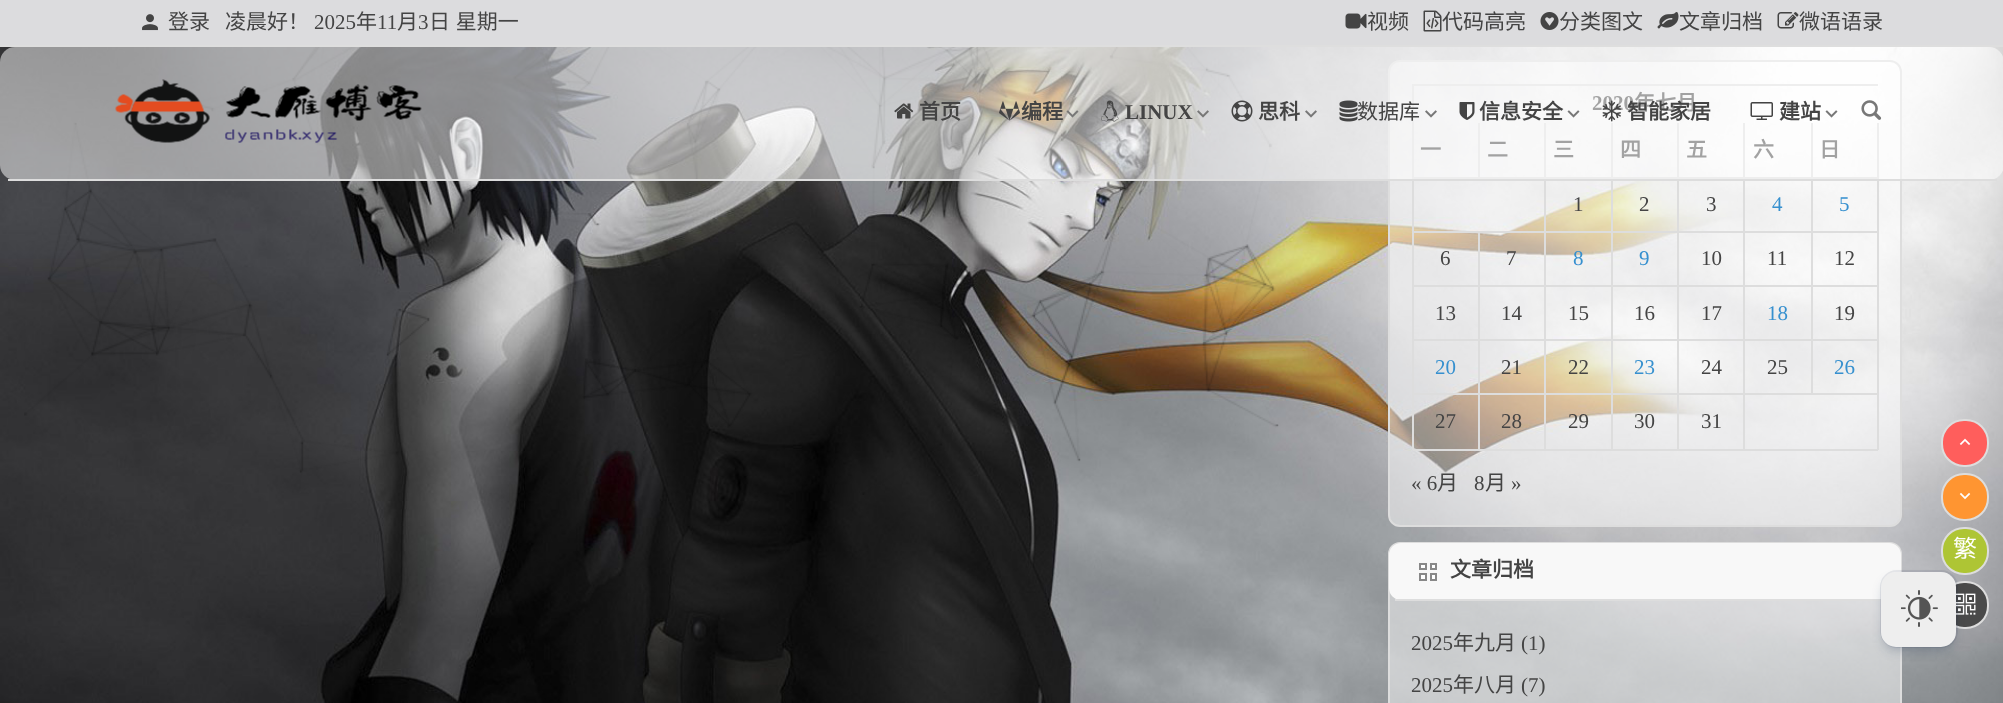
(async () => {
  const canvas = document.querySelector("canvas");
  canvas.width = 2003;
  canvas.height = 703;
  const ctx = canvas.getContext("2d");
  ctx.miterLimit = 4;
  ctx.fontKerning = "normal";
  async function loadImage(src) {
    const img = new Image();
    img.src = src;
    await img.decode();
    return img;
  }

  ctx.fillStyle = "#ffffff";
  ctx.fillRect(0, 0, 2003, 703);
  ctx.drawImage(await loadImage("img/1.png"), 0, 47, 2003, 656);
  ctx.fillStyle = "#dcdcde";
  ctx.fillRect(0, 0, 2003, 45);
  ctx.fillStyle = "#dedede";
  ctx.fillRect(0, 45, 2003, 2);
  ctx.drawImage(await loadImage("img/2.png"), 142, 14, 16, 17);
  ctx.drawImage(await loadImage("img/3.png"), 1345, 13, 22, 16);
  ctx.drawImage(await loadImage("img/4.png"), 1423, 10, 19, 22);
  ctx.drawImage(await loadImage("img/5.png"), 1540, 12, 19, 18);
  ctx.drawImage(await loadImage("img/6.png"), 1657, 12, 22, 17);
  ctx.drawImage(await loadImage("img/7.png"), 1777, 12, 22, 17);
  ctx.fillStyle = "rgba(255, 255, 255, 0.5)";
  ctx.beginPath();
  ctx.roundRect(1389, 61, 512, 465, 11);
  ctx.fill();
  ctx.strokeStyle = "#dddddd";
  ctx.lineWidth = 2;
  ctx.stroke();
  for (const [x, y, w, h, color] of [
    [1412, 84, 466, 2, "#dddddd"],
    [1412, 84, 2, 366, "#dddddd"],
    [1478, 123, 2, 56, "#dddddd"],
    [1413, 177, 66, 2, "#dddddd"],
    [1544, 123, 2, 327, "#dddddd"],
    [1479, 177, 66, 2, "#dddddd"],
    [1611, 123, 2, 327, "#dddddd"],
    [1545, 177, 68, 2, "#dddddd"],
    [1677, 123, 2, 327, "#dddddd"],
    [1613, 177, 66, 2, "#dddddd"],
    [1743, 123, 2, 327, "#dddddd"],
    [1679, 177, 66, 2, "#dddddd"],
    [1811, 123, 2, 272, "#dddddd"],
    [1745, 177, 67, 2, "#dddddd"],
    [1877, 123, 2, 327, "#dddddd"],
    [1812, 177, 66, 2, "#dddddd"],
    [1413, 231, 465, 2, "#dddddd"],
    [1478, 233, 2, 217, "#dddddd"],
    [1413, 285, 465, 2, "#dddddd"],
    [1413, 339, 465, 2, "#dddddd"],
    [1413, 393, 465, 2, "#dddddd"],
    [1413, 449, 465, 2, "#dddddd"],
  ]) {
    ctx.fillStyle = color;
    ctx.fillRect(x, y, w, h);
  }
  ctx.fillStyle = "rgba(255, 255, 255, 0.5)";
  ctx.beginPath();
  ctx.roundRect(1389, 543, 512, 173, 11);
  ctx.fill();
  ctx.stroke();
  ctx.fillStyle = "#f8f8f8";
  ctx.beginPath();
  ctx.roundRect(1389, 543, 512, 57, 12);
  ctx.fill();
  ctx.fillStyle = "#dddddd";
  ctx.fillRect(1395, 599, 486, 2);
  ctx.fillStyle = "#ffffff";
  ctx.beginPath();
  ctx.rect(1420, 564, 6, 5);
  ctx.fill();
  ctx.strokeStyle = "#888888";
  ctx.stroke();
  ctx.beginPath();
  ctx.rect(1431, 564, 5, 5);
  ctx.fill();
  ctx.stroke();
  ctx.beginPath();
  ctx.rect(1420, 574, 6, 6);
  ctx.fill();
  ctx.stroke();
  ctx.beginPath();
  ctx.rect(1431, 574, 5, 6);
  ctx.fill();
  ctx.stroke();
  ctx.fillStyle = "#ff5e5c";
  ctx.beginPath();
  ctx.roundRect(1942, 420, 46, 46, 22);
  ctx.fill();
  ctx.strokeStyle = "#dddddd";
  ctx.stroke();
  ctx.drawImage(await loadImage("img/24.png"), 1959, 438, 12, 7);
  ctx.fillStyle = "#ff9531";
  ctx.beginPath();
  ctx.roundRect(1942, 474, 46, 46, 22);
  ctx.fill();
  ctx.stroke();
  ctx.drawImage(await loadImage("img/25.png"), 1959, 492, 12, 8);
  ctx.fillStyle = "#aec534";
  ctx.beginPath();
  ctx.roundRect(1942, 528, 46, 46, 22);
  ctx.fill();
  ctx.stroke();
  ctx.fillStyle = "#4a4a4a";
  ctx.beginPath();
  ctx.roundRect(1942, 582, 46, 46, 22);
  ctx.fill();
  ctx.stroke();
  ctx.drawImage(await loadImage("img/26.png"), 1956, 593, 20, 22);
  ctx.drawImage(await loadImage("img/27.png"), 24, 47, 1255, 448);
  ctx.beginPath();
  ctx.roundRect(1881, 571, 76, 76, 16);
  ctx.strokeStyle = "rgba(9, 30, 66, 0.08)";
  ctx.stroke();
  ctx.fillStyle = "rgba(9, 30, 66, 0.25)";
  ctx.filter = "blur(6px)";
  ctx.beginPath();
  ctx.roundRect(1884, 581, 69, 69, 12);
  ctx.fill();
  ctx.filter = "none";
  ctx.fillStyle = "#eeeeee";
  ctx.beginPath();
  ctx.roundRect(1881, 572, 75, 75, 15);
  ctx.fill();
  ctx.drawImage(await loadImage("img/28.png"), 1901, 590, 37, 37);
  ctx.font = "21px Noto Sans CJK SC";
  ctx.fillStyle = "#444444";
  ctx.fillText("登录", 168, 29);
  ctx.fillText("凌晨好！", 225, 29);
  ctx.font = "21px Liberation Serif";
  ctx.fillText("2025", 314, 29);
  ctx.font = "21px Noto Sans CJK SC";
  ctx.fillText("年", 356, 29);
  ctx.font = "21px Liberation Serif";
  ctx.fillText("11", 377, 29);
  ctx.font = "21px Noto Sans CJK SC";
  ctx.fillText("月", 397, 29);
  ctx.font = "21px Liberation Serif";
  ctx.fillText("3", 418, 29);
  ctx.wordSpacing = "1px";
  ctx.font = "21px Noto Sans CJK SC";
  ctx.fillText("日 星期一", 429, 29);
  ctx.wordSpacing = "0px";
  for (const [text, x, y] of [
    ["视频", 1367, 29],
    ["代码高亮", 1442, 29],
    ["分类图文", 1559, 29],
    ["文章归档", 1679, 29],
    ["微语语录", 1799, 29],
  ]) {
    ctx.fillText(text, x, y);
  }
  ctx.font = "bold 21px Liberation Serif";
  ctx.fillText("2020", 1592, 110);
  ctx.font = "bold 21px Noto Sans CJK SC";
  for (const [text, x, y] of [
    ["年七月", 1634, 110],
    ["一", 1420, 157],
    ["二", 1487, 157],
    ["三", 1553, 157],
    ["四", 1620, 157],
    ["五", 1686, 157],
    ["六", 1753, 157],
    ["日", 1819, 157],
  ]) {
    ctx.fillText(text, x, y);
  }
  ctx.fillStyle = "rgba(255, 255, 255, 0.5)";
  ctx.beginPath();
  ctx.roundRect(0, 47, 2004, 133, 15);
  ctx.fill();
  ctx.drawImage(await loadImage("img/22.png"), 1825, 110, 13, 8);
  ctx.fillStyle = "#444444";
  ctx.fillText("建站", 1779, 119);
  ctx.drawImage(await loadImage("img/21.png"), 1750, 102, 23, 18);
  ctx.fillText("智能家居", 1627, 119);
  ctx.drawImage(await loadImage("img/20.png"), 1602, 100, 19, 22);
  ctx.drawImage(await loadImage("img/19.png"), 1567, 110, 13, 8);
  ctx.fillText("信息安全", 1479, 119);
  ctx.drawImage(await loadImage("img/18.png"), 1459, 102, 16, 18);
  ctx.drawImage(await loadImage("img/17.png"), 1425, 110, 12, 8);
  ctx.drawImage(await loadImage("img/16.png"), 1339, 100, 19, 22);
  ctx.font = "21px Noto Sans CJK SC";
  ctx.fillText("数据库", 1357, 119);
  ctx.drawImage(await loadImage("img/15.png"), 1305, 110, 12, 8);
  ctx.font = "bold 21px Noto Sans CJK SC";
  ctx.fillText("思科", 1258, 119);
  ctx.drawImage(await loadImage("img/14.png"), 1231, 100, 22, 22);
  ctx.drawImage(await loadImage("img/13.png"), 1197, 110, 12, 8);
  ctx.font = "bold 21px Liberation Serif";
  ctx.fillText("LINUX", 1125, 119);
  ctx.drawImage(await loadImage("img/12.png"), 1101, 100, 18, 22);
  ctx.drawImage(await loadImage("img/11.png"), 1066, 110, 13, 8);
  ctx.font = "bold 21px Noto Sans CJK SC";
  ctx.fillText("编程", 1021, 119);
  ctx.drawImage(await loadImage("img/10.png"), 999, 101, 21, 20);
  ctx.fillText("首页", 919, 119);
  ctx.drawImage(await loadImage("img/9.png"), 894, 103, 20, 16);
  ctx.drawImage(await loadImage("img/8.png"), 115, 79, 307, 64);
  ctx.drawImage(await loadImage("img/23.png"), 1861, 100, 21, 20);
  ctx.fillStyle = "#dddddd";
  ctx.fillRect(8, 179, 1989, 2);
  ctx.font = "21px Liberation Serif";
  ctx.fillStyle = "#444444";
  for (const [text, x, y] of [
    ["1", 1573, 211],
    ["2", 1639, 211],
    ["3", 1706, 211],
  ]) {
    ctx.fillText(text, x, y);
  }
  ctx.fillStyle = "#3690cf";
  ctx.fillText("4", 1772, 211);
  ctx.fillText("5", 1839, 211);
  ctx.fillStyle = "#444444";
  ctx.fillText("6", 1440, 265);
  ctx.fillText("7", 1506, 265);
  ctx.fillStyle = "#3690cf";
  ctx.fillText("8", 1573, 265);
  ctx.fillText("9", 1639, 265);
  ctx.fillStyle = "#444444";
  for (const [text, x, y] of [
    ["10", 1701, 265],
    ["11", 1767, 265],
    ["12", 1834, 265],
    ["13", 1435, 320],
    ["14", 1501, 320],
    ["15", 1568, 320],
    ["16", 1634, 320],
    ["17", 1701, 320],
  ]) {
    ctx.fillText(text, x, y);
  }
  ctx.fillStyle = "#3690cf";
  ctx.fillText("18", 1767, 320);
  ctx.fillStyle = "#444444";
  ctx.fillText("19", 1834, 320);
  ctx.fillStyle = "#3690cf";
  ctx.fillText("20", 1435, 374);
  ctx.fillStyle = "#444444";
  ctx.fillText("21", 1501, 374);
  ctx.fillText("22", 1568, 374);
  ctx.fillStyle = "#3690cf";
  ctx.fillText("23", 1634, 374);
  ctx.fillStyle = "#444444";
  ctx.fillText("24", 1701, 374);
  ctx.fillText("25", 1767, 374);
  ctx.fillStyle = "#3690cf";
  ctx.fillText("26", 1834, 374);
  ctx.fillStyle = "#444444";
  for (const [text, x, y] of [
    ["27", 1435, 428],
    ["28", 1501, 428],
    ["29", 1568, 428],
    ["30", 1634, 428],
    ["31", 1701, 428],
    ["« 6", 1411, 490],
  ]) {
    ctx.fillText(text, x, y);
  }
  ctx.font = "21px Noto Sans CJK SC";
  ctx.fillText("月", 1437, 490);
  ctx.font = "21px Liberation Serif";
  ctx.fillText("8", 1474, 490);
  ctx.font = "21px Noto Sans CJK SC";
  ctx.fillText("月", 1485, 490);
  ctx.font = "21px Liberation Serif";
  ctx.fillText("»", 1511, 490);
  ctx.font = "bold 21px Noto Sans CJK SC";
  ctx.fillText("文章归档", 1450, 577);
  ctx.font = "21px Liberation Serif";
  ctx.fillText("2025", 1411, 650);
  ctx.font = "21px Noto Sans CJK SC";
  ctx.fillText("年九月", 1453, 650);
  ctx.font = "21px Liberation Serif";
  ctx.fillText("(1)", 1521, 650);
  ctx.fillText("2025", 1411, 692);
  ctx.font = "21px Noto Sans CJK SC";
  ctx.fillText("年八月", 1453, 692);
  ctx.font = "21px Liberation Serif";
  ctx.fillText("(7)", 1521, 692);
  ctx.font = "24px Noto Sans CJK SC";
  ctx.fillStyle = "#ffffff";
  ctx.fillText("繁", 1953, 557);
})();
